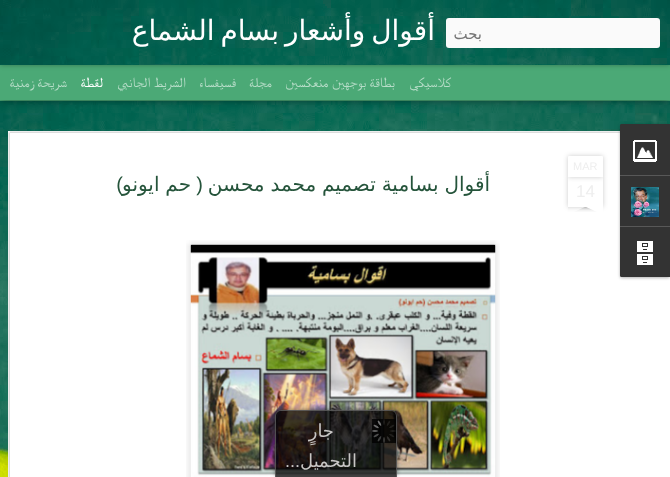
(async () => {
  const canvas = document.querySelector("canvas");
  canvas.width = 670;
  canvas.height = 477;
  const ctx = canvas.getContext("2d");
  ctx.miterLimit = 4;
  ctx.fontKerning = "normal";
  async function loadImage(src) {
    const img = new Image();
    img.src = src;
    await img.decode();
    return img;
  }
  let path;

  ctx.fillStyle = "#4ba976";
  ctx.fillRect(0, 0, 670, 477);
  ctx.drawImage(await loadImage("img/5.png"), 0, 101, 670, 376);
  ctx.fillStyle = "rgba(0, 0, 0, 0.5)";
  ctx.filter = "blur(4px)";
  ctx.beginPath();
  ctx.rect(0, 65, 670, 35);
  ctx.fill();
  ctx.filter = "none";
  ctx.fillStyle = "#4ba976";
  ctx.fillRect(0, 65, 670, 35);
  ctx.fillStyle = "rgba(0, 0, 0, 0.3)";
  ctx.filter = "blur(2.5px)";
  ctx.beginPath();
  ctx.rect(0, 0, 670, 65);
  ctx.fill();
  ctx.filter = "none";
  ctx.drawImage(await loadImage("img/1.png"), 0, 0, 670, 65);
  ctx.fillStyle = "#fafafa";
  ctx.beginPath();
  ctx.roundRect(446, 18, 214, 30, 3);
  ctx.fill();
  ctx.fillStyle = "#ffffff";
  ctx.fillRect(8, 131, 662, 346);
  ctx.drawImage(await loadImage("img/6.png"), 8, 131, 612, 346);
  ctx.fillStyle = "rgba(0, 0, 0, 0.3)";
  ctx.filter = "blur(1.5px)";
  ctx.beginPath();
  ctx.roundRect(620, 125, 50, 153, 2);
  ctx.fill();
  ctx.filter = "none";
  ctx.save();
  path = new Path2D("M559 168H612V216H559ZM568 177H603V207H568Z");
  ctx.clip(path, "evenodd");
  ctx.fillStyle = "rgba(0, 0, 0, 0.2)";
  ctx.filter = "blur(2.5px)";
  ctx.beginPath();
  ctx.rect(568, 177, 35, 30);
  ctx.fill();
  ctx.filter = "none";
  ctx.restore();
  ctx.save();
  ctx.beginPath();
  ctx.rect(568, 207, 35, 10);
  ctx.clip();
  ctx.fillStyle = "rgba(0, 0, 0, 0.2)";
  ctx.filter = "blur(2.5px)";
  ctx.beginPath();
  ctx.rect(559, 197, 50, 10);
  ctx.fill();
  ctx.filter = "none";
  ctx.restore();
  ctx.save();
  ctx.beginPath();
  ctx.rect(568, 207, 35, 10);
  ctx.clip();
  ctx.fillStyle = "#ffffff";
  path = new Path2D("M559 208L605 187L609 196L563 217Z");
  ctx.fill(path);
  ctx.restore();
  ctx.save();
  ctx.beginPath();
  ctx.rect(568, 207, 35, 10);
  ctx.clip();
  ctx.fillStyle = "rgba(0, 0, 0, 0.2)";
  ctx.filter = "blur(2.5px)";
  ctx.beginPath();
  ctx.rect(562, 197, 50, 10);
  ctx.fill();
  ctx.filter = "none";
  ctx.restore();
  ctx.fillStyle = "#333333";
  ctx.beginPath();
  ctx.roundRect(620, 124, 50, 153, [2, 0, 0, 2]);
  ctx.fill();
  ctx.beginPath();
  ctx.roundRect(620, 124, 50, 51, [2, 0, 0, 0]);
  ctx.fill();
  ctx.drawImage(await loadImage("img/2.png"), 633, 140, 24, 22);
  ctx.fillStyle = "#585858";
  ctx.fillRect(620, 175, 50, 1);
  ctx.drawImage(await loadImage("img/3.png"), 631, 187, 28, 30);
  ctx.fillStyle = "#333333";
  ctx.beginPath();
  ctx.roundRect(620, 226, 50, 51, [0, 0, 0, 2]);
  ctx.fill();
  ctx.fillStyle = "#585858";
  ctx.fillRect(620, 226, 50, 1);
  ctx.drawImage(await loadImage("img/4.png"), 637, 241, 16, 24);
  ctx.fillStyle = "rgba(0, 0, 0, 0.2)";
  ctx.filter = "blur(2.5px)";
  ctx.beginPath();
  ctx.roundRect(568, 156, 35, 21, 1);
  ctx.fill();
  ctx.filter = "none";
  ctx.fillStyle = "#ffffff";
  ctx.beginPath();
  ctx.roundRect(568, 156, 35, 21, [1, 1, 0, 0]);
  ctx.fill();
  ctx.save();
  ctx.beginPath();
  ctx.rect(568, 207, 35, 10);
  ctx.clip();
  path = new Path2D("M566 187L612 208L608 217L562 196Z");
  ctx.fill(path);
  ctx.restore();
  ctx.drawImage(await loadImage("img/7.png"), 186, 240, 314, 237);
  ctx.drawImage(await loadImage("img/8.png"), 190, 244, 306, 233);
  ctx.save();
  path = new Path2D("M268 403H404V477H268ZM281 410H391C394.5 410 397 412.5 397 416V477H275V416C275 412.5 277.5 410 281 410Z");
  ctx.clip(path, "evenodd");
  ctx.fillStyle = "rgba(51, 51, 51, 0.75)";
  ctx.filter = "blur(2px)";
  ctx.beginPath();
  ctx.roundRect(275, 410, 122, 67, 6);
  ctx.fill();
  ctx.filter = "none";
  ctx.restore();
  ctx.fillStyle = "rgba(0, 0, 0, 0.75)";
  ctx.beginPath();
  ctx.roundRect(275, 410, 122, 67, [6, 6, 0, 0]);
  ctx.fill();
  ctx.fillStyle = "rgba(102, 102, 102, 0.75)";
  path = new Path2D("M281 410H391C394 410 397 413 397 416V477H275V416C275 413 278 410 281 410ZM281 411H391C394 411 396 413 396 416V477H276V416C276 413 278 411 281 411Z");
  ctx.fill(path, "evenodd");
  ctx.drawImage(await loadImage("img/9.png"), 372, 419, 24, 24);
  ctx.direction = "rtl";
  ctx.font = "15px DejaVu Sans";
  ctx.fillStyle = "#757575";
  ctx.fillText("بحث", 482, 39);
  ctx.wordSpacing = "-3px";
  ctx.font = "28px DejaVu Sans";
  ctx.fillStyle = "#ffffff";
  ctx.fillText("أقوال وأشعار بسام الشماع", 435, 40);
  ctx.wordSpacing = "0px";
  ctx.font = "14px FreeSerif";
  ctx.fillStyle = "#b7ddc8";
  for (const [text, x, y] of [
    ["كلاسيكي", 451, 87],
    ["بطاقة بوجهين منعكسين", 395, 87],
    ["مجلة", 272, 87],
    ["فسيفساء", 236, 87],
    ["الشريط الجانبي", 186, 87],
  ]) {
    ctx.fillText(text, x, y);
  }
  ctx.fillStyle = "#ffffff";
  ctx.fillText("لقطة", 103, 87);
  ctx.fillStyle = "#b7ddc8";
  ctx.fillText("شريحة زمنية", 67, 87);
  ctx.direction = "ltr";
  ctx.font = "11px Liberation Sans";
  ctx.fillStyle = "#eeeeee";
  ctx.fillText("MAR", 573, 170);
  ctx.font = "17px Liberation Sans";
  ctx.fillText("14", 576, 197);
  ctx.wordSpacing = "-0.5px";
  ctx.direction = "rtl";
  ctx.font = "20px DejaVu Sans";
  ctx.fillStyle = "#25543b";
  ctx.fillText("أقوال بسامية تصميم محمد محسن", 490, 191);
  ctx.wordSpacing = "0px";
  ctx.font = "20px Liberation Sans";
  ctx.fillText("(", 203, 191);
  ctx.fillText(")", 123, 191);
  ctx.wordSpacing = "-0.5px";
  ctx.font = "20px DejaVu Sans";
  ctx.fillText("حم ايونو", 191, 191);
  ctx.wordSpacing = "0px";
  ctx.font = "18px DejaVu Sans";
  ctx.fillStyle = "#c8c6c5";
  ctx.fillText("جارٍ", 334, 437);
  ctx.fillText("التحميل", 357, 467);
  ctx.direction = "ltr";
  ctx.font = "18px Liberation Sans";
  ctx.fillText("...", 285, 467);
})();
